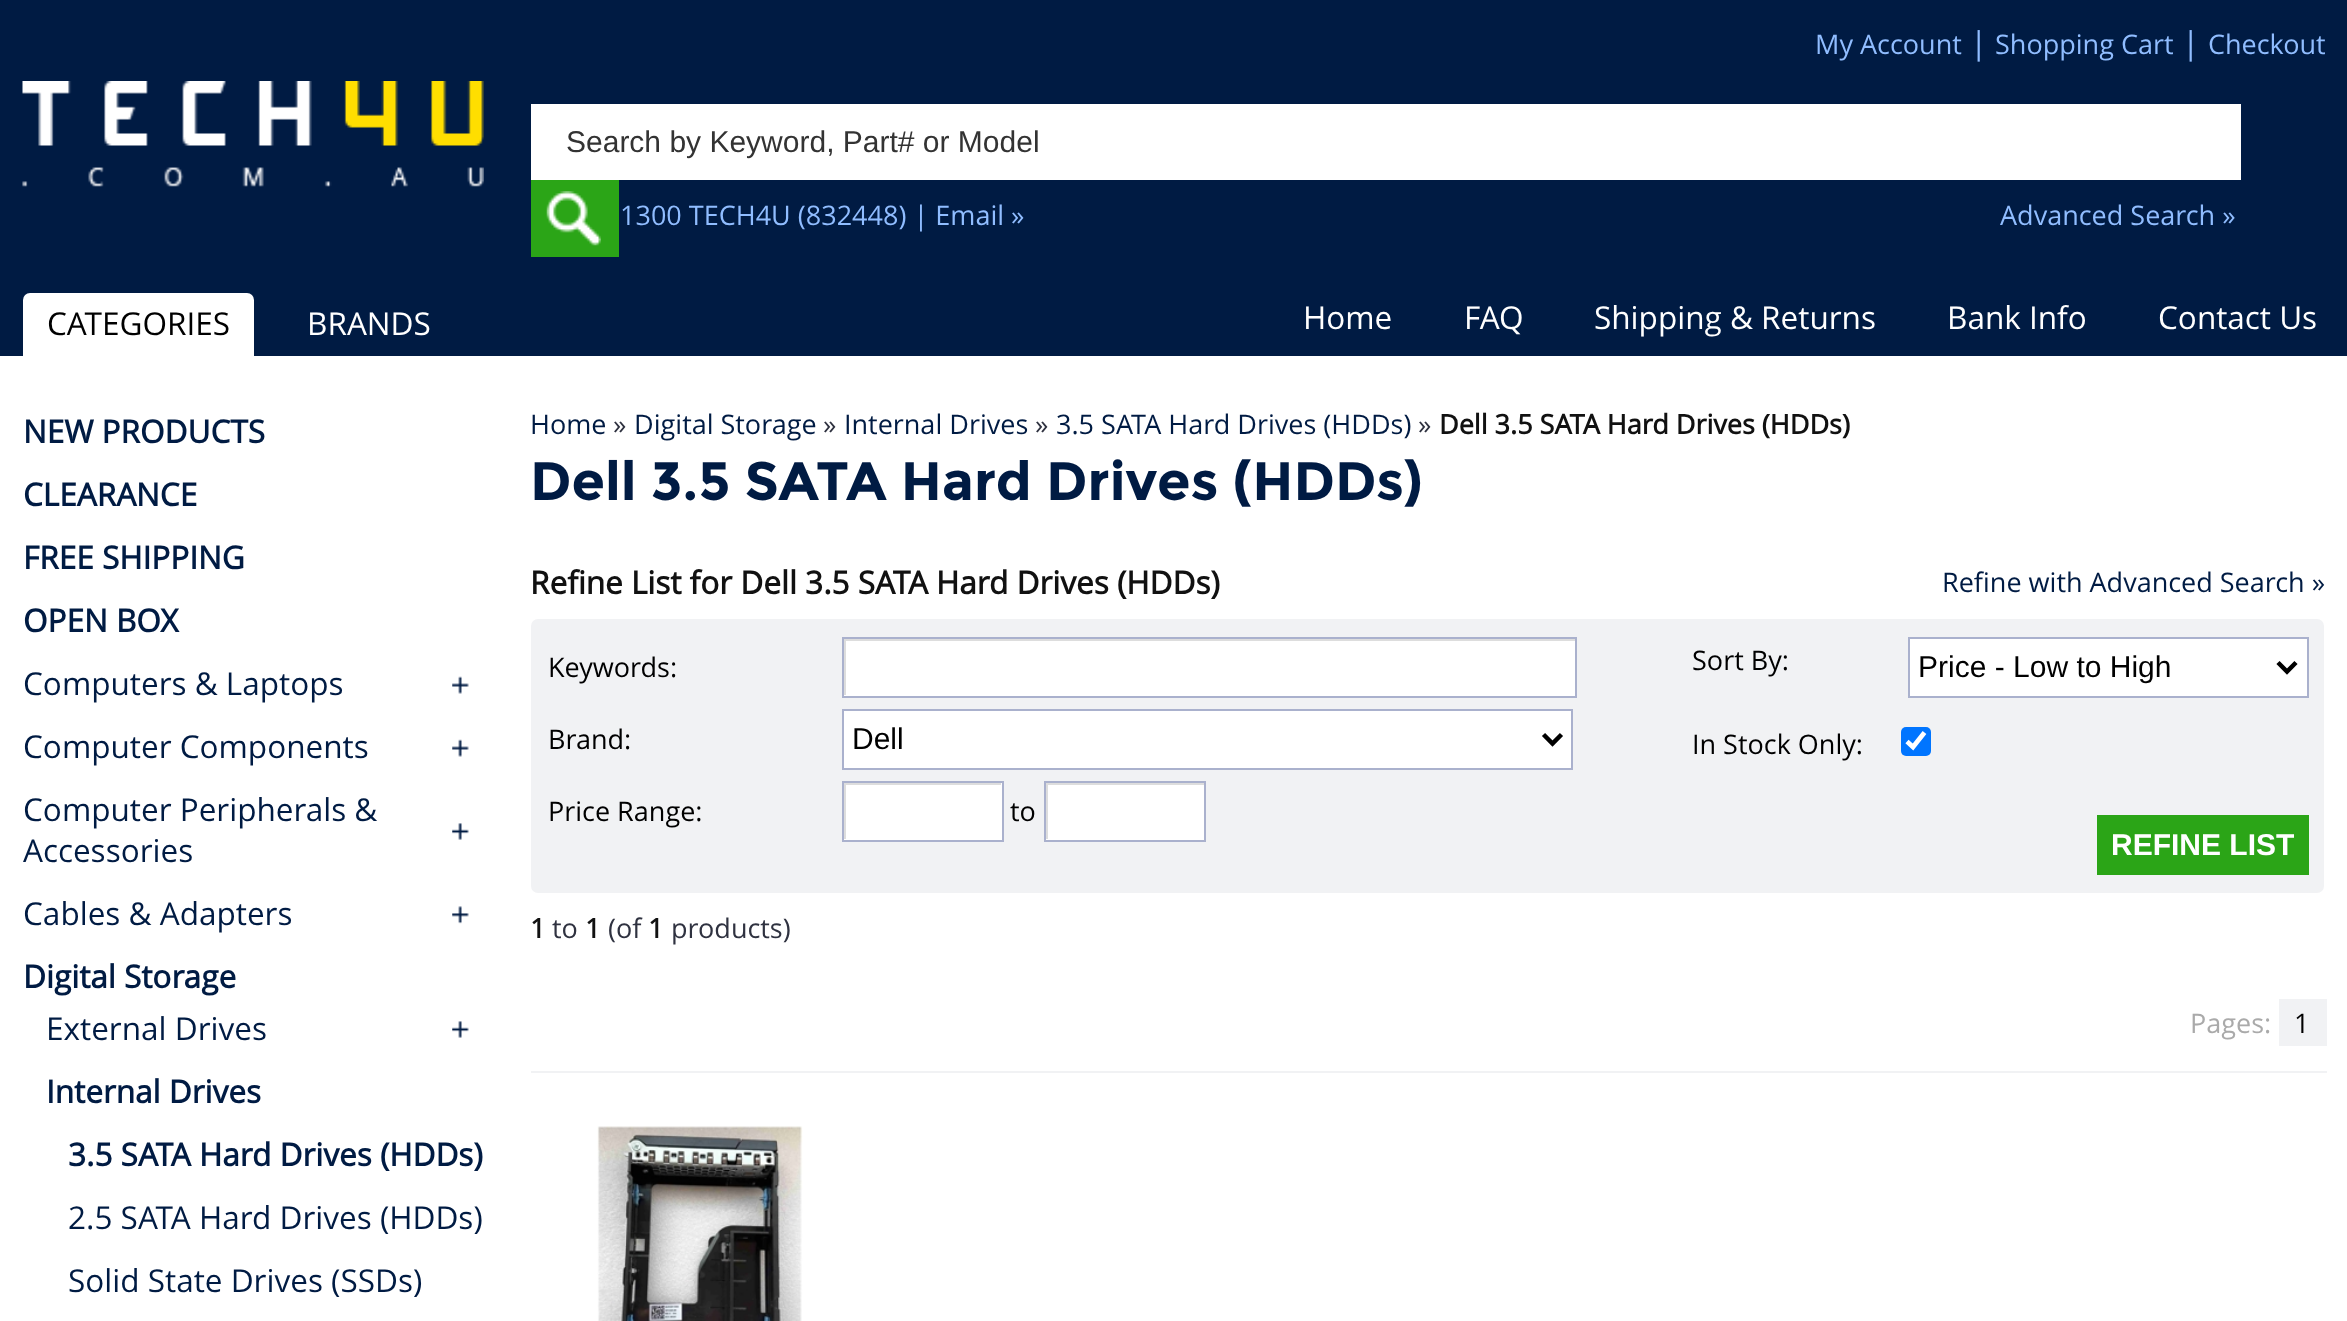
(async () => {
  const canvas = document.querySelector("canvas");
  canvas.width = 2347;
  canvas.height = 1321;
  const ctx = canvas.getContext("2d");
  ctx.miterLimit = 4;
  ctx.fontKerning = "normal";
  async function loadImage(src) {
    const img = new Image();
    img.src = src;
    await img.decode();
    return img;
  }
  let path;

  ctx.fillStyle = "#ffffff";
  ctx.fillRect(0, 0, 2347, 1321);
  ctx.fillStyle = "#001b43";
  ctx.fillRect(0, 0, 2347, 356);
  ctx.drawImage(await loadImage("img/1.png"), 22, 81, 462, 106);
  ctx.fillStyle = "#ffffff";
  ctx.fillRect(531, 104, 1710, 76);
  ctx.fillStyle = "#2ba517";
  ctx.fillRect(531, 180, 88, 77);
  ctx.drawImage(await loadImage("img/2.png"), 546, 191, 55, 55);
  ctx.fillStyle = "#ffffff";
  ctx.beginPath();
  ctx.roundRect(23, 293, 231, 63, [7, 7, 0, 0]);
  ctx.fill();
  ctx.drawImage(await loadImage("img/3.png"), 452, 676, 17, 18);
  ctx.drawImage(await loadImage("img/3.png"), 452, 739, 17, 18);
  ctx.drawImage(await loadImage("img/4.png"), 452, 823, 17, 17);
  ctx.drawImage(await loadImage("img/5.png"), 452, 906, 17, 18);
  ctx.drawImage(await loadImage("img/4.png"), 452, 1021, 17, 17);
  ctx.fillStyle = "#f1f2f4";
  ctx.beginPath();
  ctx.roundRect(531, 619, 1793, 274, 7);
  ctx.fill();
  ctx.fillStyle = "#ffffff";
  ctx.fillRect(844, 641, 731, 55);
  ctx.save();
  ctx.beginPath();
  ctx.rect(844, 639, 731, 56);
  ctx.clip();
  ctx.fillStyle = "#dddddd";
  path = new Path2D("M621 416H1798V918H621ZM846 641H1577V698H846Z");
  ctx.fill(path, "evenodd");
  ctx.restore();
  ctx.strokeStyle = "#aab1cd";
  ctx.lineWidth = 2;
  ctx.strokeRect(843, 638, 733, 59);
  ctx.beginPath();
  ctx.rect(843, 710, 729, 59);
  ctx.fill();
  ctx.stroke();
  path = new Path2D("M1543.5 734.5L1552.5 743.5L1561.5 734.5");
  ctx.strokeStyle = "#000000";
  ctx.lineWidth = 4.5;
  ctx.stroke(path);
  ctx.fillRect(844, 783, 158, 57);
  ctx.save();
  ctx.beginPath();
  ctx.rect(844, 783, 157, 56);
  ctx.clip();
  ctx.fillStyle = "#dddddd";
  path = new Path2D("M621 560H1224V1062H621ZM846 785H1004V842H846Z");
  ctx.fill(path, "evenodd");
  ctx.restore();
  ctx.strokeStyle = "#aab1cd";
  ctx.lineWidth = 2;
  ctx.strokeRect(843, 782, 160, 59);
  ctx.fillRect(1046, 785, 158, 55);
  ctx.save();
  ctx.beginPath();
  ctx.rect(1046, 783, 158, 56);
  ctx.clip();
  ctx.fillStyle = "#dddddd";
  path = new Path2D("M824 560H1426V1062H824ZM1048 785H1206V842H1048Z");
  ctx.fill(path, "evenodd");
  ctx.restore();
  ctx.strokeRect(1045, 782, 160, 59);
  ctx.beginPath();
  ctx.rect(1909, 638, 399, 59);
  ctx.fill();
  ctx.stroke();
  path = new Path2D("M2278 662.5L2287 671.5L2296 662.5");
  ctx.strokeStyle = "#000000";
  ctx.lineWidth = 4.5;
  ctx.stroke(path);
  ctx.fillStyle = "#0075ff";
  ctx.beginPath();
  ctx.roundRect(1901, 727, 30, 29, 5);
  ctx.fill();
  path = new Path2D("M1907 741.5L1913 747L1924.5 732.5");
  ctx.strokeStyle = "#ffffff";
  ctx.lineWidth = 4.7;
  ctx.stroke(path);
  for (const [x, y, w, h, color] of [
    [2097, 815, 212, 60, "#2ba517"],
    [2279, 999, 48, 47, "#f1f2f4"],
    [531, 1071, 1796, 2, "#f1f2f4"],
  ]) {
    ctx.fillStyle = color;
    ctx.fillRect(x, y, w, h);
  }
  ctx.drawImage(await loadImage("img/6.png"), 597, 1126, 206, 195);
  ctx.font = "27px Open Sans";
  ctx.fillStyle = "#90bdff";
  ctx.fillText("My Account", 1815, 54);
  ctx.font = "31.5px Open Sans";
  ctx.fillText("|", 1970, 54);
  ctx.font = "27px Open Sans";
  ctx.fillText("Shopping Cart", 1995, 54);
  ctx.font = "31.5px Open Sans";
  ctx.fillText("|", 2182, 54);
  ctx.font = "27px Open Sans";
  ctx.fillText("Checkout", 2208, 54);
  ctx.font = "30px Liberation Sans";
  ctx.fillStyle = "#333333";
  ctx.fillText("Search by Keyword, Part# or Model", 566, 152);
  ctx.font = "27px Open Sans";
  ctx.fillStyle = "#90bdff";
  ctx.fillText("1300 TECH4U (832448) | Email »", 620, 225);
  ctx.fillText("Advanced Search »", 2000, 225);
  ctx.font = "31.5px Open Sans";
  ctx.fillStyle = "#ffffff";
  for (const [text, x, y] of [
    ["Home", 1303, 329],
    ["FAQ", 1464, 329],
    ["Shipping & Returns", 1594, 329],
    ["Bank Info", 1947, 329],
    ["Contact Us", 2158, 329],
  ]) {
    ctx.fillText(text, x, y);
  }
  ctx.fillStyle = "#000000";
  ctx.fillText("CATEGORIES", 47, 335);
  ctx.fillStyle = "#ffffff";
  ctx.fillText("BRANDS", 307, 335);
  ctx.font = "bold 31.5px Open Sans";
  ctx.fillStyle = "#001b43";
  for (const [text, x, y] of [
    ["NEW PRODUCTS", 23, 443],
    ["CLEARANCE", 23, 506],
    ["FREE SHIPPING", 23, 569],
    ["OPEN BOX", 23, 632],
  ]) {
    ctx.fillText(text, x, y);
  }
  ctx.font = "31.5px Open Sans";
  for (const [text, x, y] of [
    ["Computers & Laptops", 23, 695],
    ["Computer Components", 23, 758],
    ["Computer Peripherals &", 23, 821],
    ["Accessories", 23, 862],
    ["Cables & Adapters", 23, 925],
  ]) {
    ctx.fillText(text, x, y);
  }
  ctx.font = "bold 31.5px Open Sans";
  ctx.fillText("Digital Storage", 23, 988);
  ctx.font = "31.5px Open Sans";
  ctx.fillText("External Drives", 46, 1040);
  ctx.font = "bold 31.5px Open Sans";
  ctx.fillText("Internal Drives", 46, 1103);
  ctx.fillText("3.5 SATA Hard Drives (HDDs)", 68, 1166);
  ctx.font = "31.5px Open Sans";
  ctx.fillText("2.5 SATA Hard Drives (HDDs)", 68, 1229);
  ctx.fillText("Solid State Drives (SSDs)", 68, 1292);
  ctx.font = "27px Open Sans";
  ctx.fillText("Home", 530, 434);
  ctx.fillStyle = "#2f3240";
  ctx.fillText("»", 613, 434);
  ctx.fillStyle = "#001b43";
  ctx.fillText("Digital Storage", 634, 434);
  ctx.fillStyle = "#2f3240";
  ctx.fillText("»", 823, 434);
  ctx.fillStyle = "#001b43";
  ctx.fillText("Internal Drives", 844, 434);
  ctx.fillStyle = "#2f3240";
  ctx.fillText("»", 1035, 434);
  ctx.fillStyle = "#001b43";
  ctx.fillText("3.5 SATA Hard Drives (HDDs)", 1056, 434);
  ctx.fillStyle = "#2f3240";
  ctx.fillText("»", 1418, 434);
  ctx.font = "bold 27px Open Sans";
  ctx.fillStyle = "#111111";
  ctx.fillText("Dell 3.5 SATA Hard Drives (HDDs)", 1439, 434);
  ctx.font = "bold 54px Montserrat";
  ctx.fillStyle = "#001b43";
  ctx.fillText("Dell 3.5 SATA Hard Drives (HDDs)", 530, 500);
  ctx.font = "bold 31.5px Open Sans";
  ctx.fillStyle = "#111111";
  ctx.fillText("Refine List for Dell 3.5 SATA Hard Drives (HDDs)", 530, 594);
  ctx.font = "27px Open Sans";
  ctx.fillStyle = "#001b43";
  ctx.fillText("Refine with Advanced Search »", 1942, 592);
  ctx.fillStyle = "#000000";
  ctx.fillText("Keywords:", 548, 677);
  ctx.fillText("Brand:", 548, 749);
  ctx.font = "30px Liberation Sans";
  ctx.fillText("Dell", 852, 749);
  ctx.font = "27px Open Sans";
  for (const [text, x, y] of [
    ["Price Range:", 548, 821],
    ["to", 1010, 821],
    ["Sort By:", 1692, 670],
  ]) {
    ctx.fillText(text, x, y);
  }
  ctx.font = "30px Liberation Sans";
  ctx.fillText("Price - Low to High", 1918, 677);
  ctx.font = "27px Open Sans";
  ctx.fillText("In Stock Only:", 1692, 754);
  ctx.font = "bold 30px Liberation Sans";
  ctx.fillStyle = "#ffffff";
  ctx.fillText("REFINE LIST", 2111, 855);
  ctx.font = "bold 27px Open Sans";
  ctx.fillStyle = "#111111";
  ctx.fillText("1", 530, 938);
  ctx.font = "27px Open Sans";
  ctx.fillStyle = "#2f3240";
  ctx.fillText("to", 552, 938);
  ctx.font = "bold 27px Open Sans";
  ctx.fillStyle = "#111111";
  ctx.fillText("1", 585, 938);
  ctx.font = "27px Open Sans";
  ctx.fillStyle = "#2f3240";
  ctx.fillText("(of", 608, 938);
  ctx.font = "bold 27px Open Sans";
  ctx.fillStyle = "#111111";
  ctx.fillText("1", 648, 938);
  ctx.font = "27px Open Sans";
  ctx.fillStyle = "#2f3240";
  ctx.fillText("products)", 671, 938);
  ctx.fillStyle = "#aaaaaa";
  ctx.fillText("Pages:", 2190, 1033);
  ctx.fillStyle = "#000000";
  ctx.fillText("1", 2294, 1033);
})();
